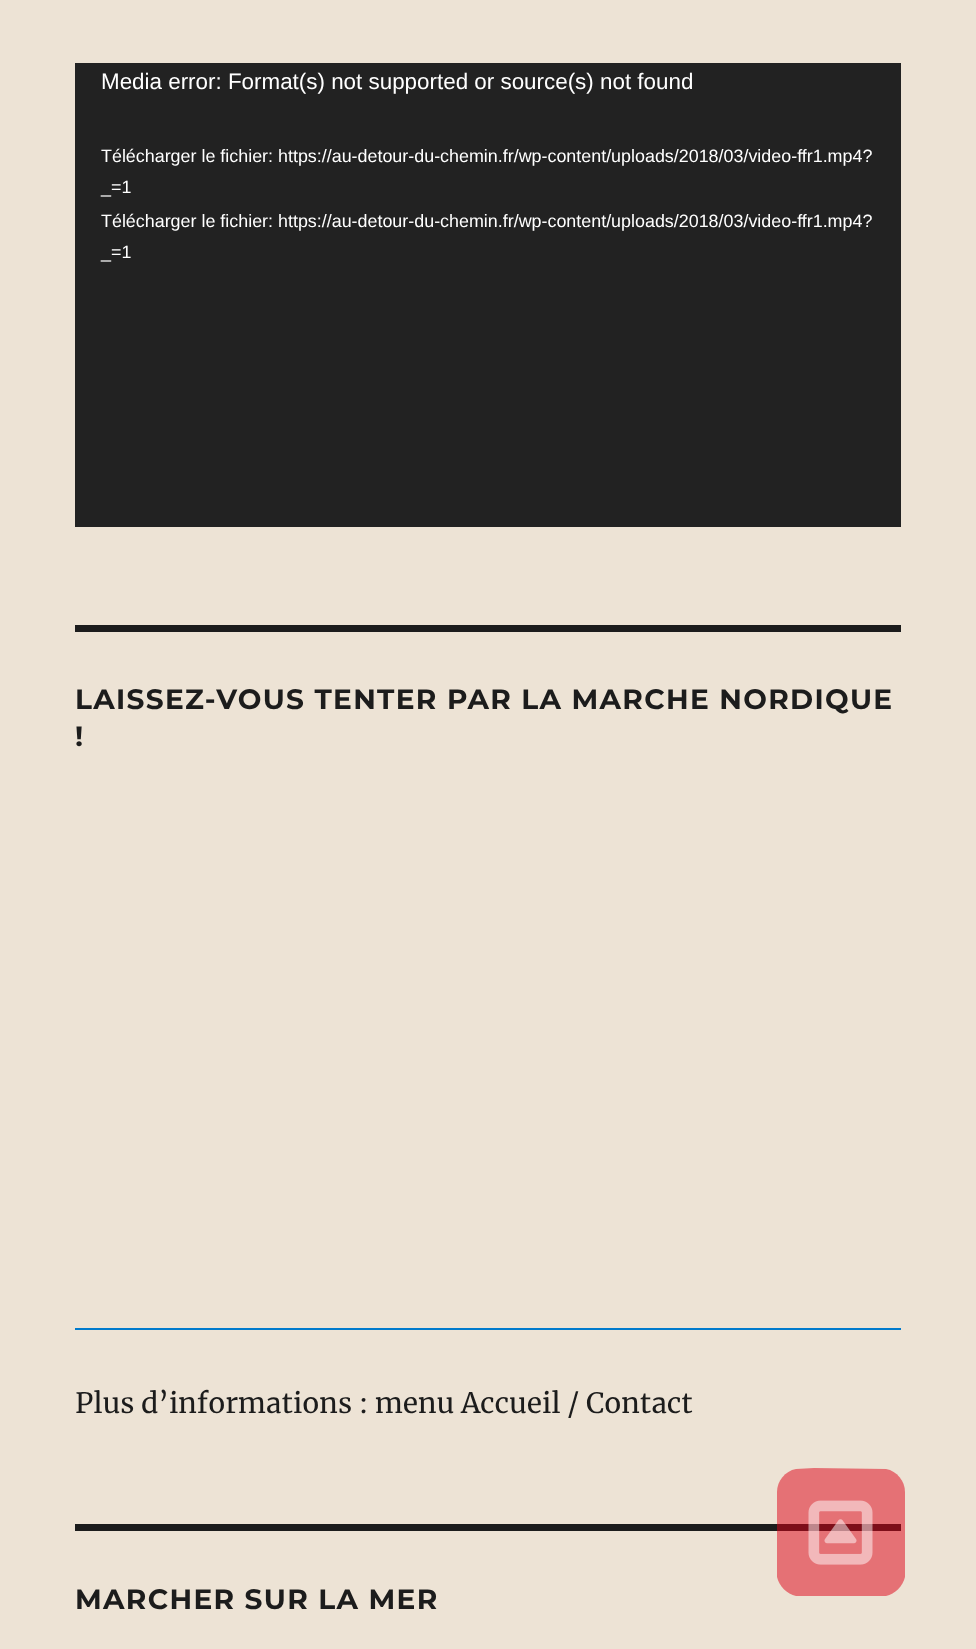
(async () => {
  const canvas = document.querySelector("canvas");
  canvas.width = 976;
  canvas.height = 1649;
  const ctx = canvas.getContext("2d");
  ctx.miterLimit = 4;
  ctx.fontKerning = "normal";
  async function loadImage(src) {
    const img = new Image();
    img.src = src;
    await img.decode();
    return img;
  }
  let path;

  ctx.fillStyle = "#ede3d5";
  ctx.fillRect(0, 0, 976, 1649);
  ctx.fillStyle = "#222222";
  ctx.fillRect(75, 63, 826, 464);
  ctx.fillStyle = "#1c1c1c";
  ctx.fillRect(75, 625, 826, 7);
  ctx.fillStyle = "#007acc";
  path = new Path2D("M75 805V1330H901V1328H75Z");
  ctx.fill(path);
  ctx.fillStyle = "#1c1c1c";
  ctx.fillRect(75, 1524, 826, 7);
  ctx.fillStyle = "rgba(221, 0, 22, 0.5)";
  path = new Path2D("M905 1492V1577C903 1586 895 1594 886 1596H868H796C787 1594 779 1586 777 1577V1492C777 1481 785 1471 796 1469L814 1468L886 1469C897 1471 905 1481 905 1492Z");
  ctx.fill(path);
  ctx.drawImage(await loadImage("img/1.png"), 808, 1500, 65, 65);
  ctx.font = "22.4px Liberation Sans";
  ctx.fillStyle = "#ffffff";
  ctx.fillText("Media error: Format(s) not supported or source(s) not found", 101, 89);
  ctx.font = "17.9px Liberation Sans";
  for (const [text, x, y] of [
    ["Télécharger le fichier: https://au-detour-du-chemin.fr/wp-content/uploads/2018/03/video-ffr1.mp4?", 101, 162],
    ["_=1", 101, 193],
    ["Télécharger le fichier: https://au-detour-du-chemin.fr/wp-content/uploads/2018/03/video-ffr1.mp4?", 101, 227],
    ["_=1", 101, 258],
  ]) {
    ctx.fillText(text, x, y);
  }
  ctx.letterSpacing = "1.3px";
  ctx.font = "100 28px Montserrat";
  ctx.fillStyle = "#1c1c1c";
  ctx.fillText("LAISSEZ-VOUS TENTER PAR LA MARCHE NORDIQUE", 75, 709);
  ctx.fillText("!", 75, 746);
  ctx.letterSpacing = "0px";
  ctx.font = "28px Merriweather";
  ctx.fillText("Plus d’informations : menu Accueil / Contact", 75, 1413);
  ctx.letterSpacing = "1.3px";
  ctx.font = "100 28px Montserrat";
  ctx.fillText("MARCHER SUR LA MER", 75, 1609);
})();
